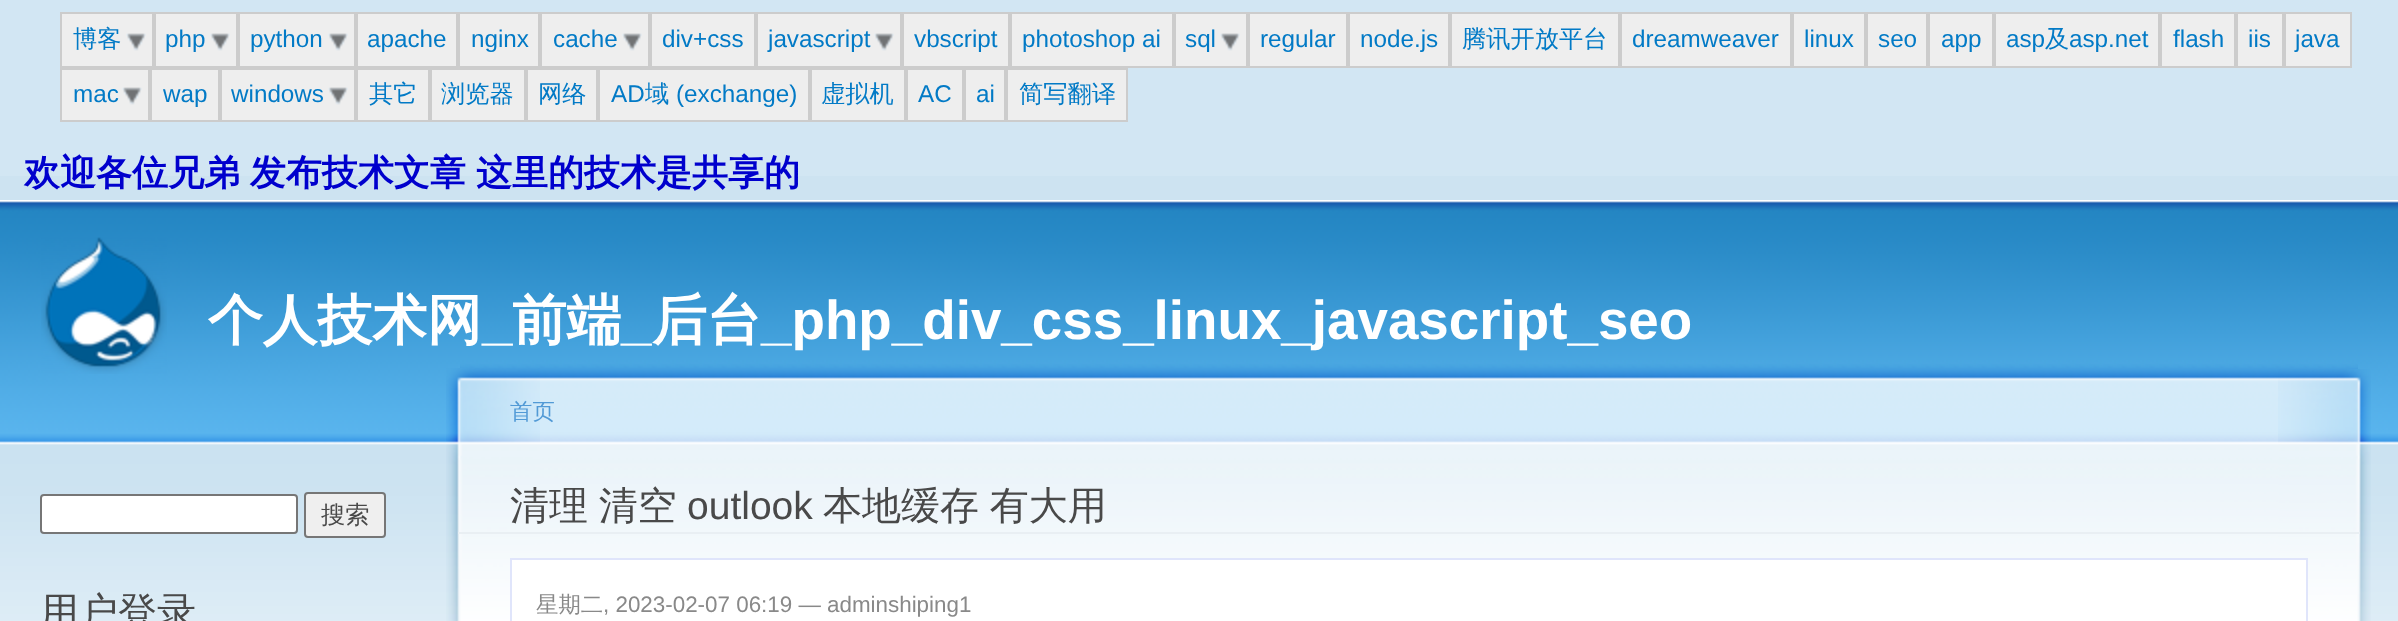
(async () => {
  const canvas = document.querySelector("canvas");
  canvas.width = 2398;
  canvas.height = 621;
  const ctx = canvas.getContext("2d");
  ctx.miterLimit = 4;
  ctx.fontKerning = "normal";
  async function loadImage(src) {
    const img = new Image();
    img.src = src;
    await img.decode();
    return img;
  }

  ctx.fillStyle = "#d2e6f3";
  ctx.fillRect(0, 0, 2398, 621);
  ctx.fillStyle = "#cde3f1";
  ctx.fillRect(0, 176, 2398, 24);
  ctx.fillStyle = "#eeeeee";
  ctx.fillRect(62, 14, 90, 52);
  ctx.drawImage(await loadImage("img/1.png"), 126, 33, 20, 18);
  ctx.strokeStyle = "#cccccc";
  ctx.lineWidth = 2;
  ctx.strokeRect(61, 13, 92, 54);
  ctx.fillRect(156, 14, 80, 52);
  ctx.drawImage(await loadImage("img/1.png"), 210, 33, 20, 18);
  ctx.strokeRect(155, 13, 82, 54);
  ctx.fillRect(240, 14, 114, 52);
  ctx.drawImage(await loadImage("img/1.png"), 328, 33, 20, 18);
  ctx.strokeRect(239, 13, 116, 54);
  ctx.beginPath();
  ctx.rect(357, 13, 100, 54);
  ctx.fill();
  ctx.stroke();
  ctx.beginPath();
  ctx.rect(459, 13, 80, 54);
  ctx.fill();
  ctx.stroke();
  ctx.fillRect(542, 14, 106, 52);
  ctx.drawImage(await loadImage("img/1.png"), 622, 33, 20, 18);
  ctx.strokeRect(541, 13, 108, 54);
  ctx.beginPath();
  ctx.rect(651, 13, 104, 54);
  ctx.fill();
  ctx.stroke();
  ctx.fillRect(758, 14, 142, 52);
  ctx.drawImage(await loadImage("img/1.png"), 874, 33, 20, 18);
  ctx.strokeRect(757, 13, 144, 54);
  ctx.beginPath();
  ctx.rect(903, 13, 106, 54);
  ctx.fill();
  ctx.stroke();
  ctx.beginPath();
  ctx.rect(1011, 13, 162, 54);
  ctx.fill();
  ctx.stroke();
  ctx.fillRect(1176, 14, 70, 52);
  ctx.drawImage(await loadImage("img/1.png"), 1220, 33, 20, 18);
  ctx.strokeRect(1175, 13, 72, 54);
  ctx.beginPath();
  ctx.rect(1249, 13, 98, 54);
  ctx.fill();
  ctx.stroke();
  ctx.beginPath();
  ctx.rect(1349, 13, 100, 54);
  ctx.fill();
  ctx.stroke();
  ctx.beginPath();
  ctx.rect(1451, 13, 168, 54);
  ctx.fill();
  ctx.stroke();
  ctx.beginPath();
  ctx.rect(1621, 13, 170, 54);
  ctx.fill();
  ctx.stroke();
  ctx.beginPath();
  ctx.rect(1793, 13, 72, 54);
  ctx.fill();
  ctx.stroke();
  ctx.beginPath();
  ctx.rect(1867, 13, 60, 54);
  ctx.fill();
  ctx.stroke();
  ctx.beginPath();
  ctx.rect(1929, 13, 64, 54);
  ctx.fill();
  ctx.stroke();
  ctx.beginPath();
  ctx.rect(1995, 13, 164, 54);
  ctx.fill();
  ctx.stroke();
  ctx.beginPath();
  ctx.rect(2161, 13, 74, 54);
  ctx.fill();
  ctx.stroke();
  ctx.beginPath();
  ctx.rect(2237, 13, 46, 54);
  ctx.fill();
  ctx.stroke();
  ctx.beginPath();
  ctx.rect(2285, 13, 66, 54);
  ctx.fill();
  ctx.stroke();
  ctx.fillRect(62, 70, 86, 50);
  ctx.drawImage(await loadImage("img/1.png"), 122, 87, 20, 18);
  ctx.strokeRect(61, 69, 88, 52);
  ctx.beginPath();
  ctx.rect(151, 69, 68, 52);
  ctx.fill();
  ctx.stroke();
  ctx.fillRect(222, 70, 132, 50);
  ctx.drawImage(await loadImage("img/1.png"), 328, 87, 20, 18);
  ctx.strokeRect(221, 69, 134, 52);
  ctx.beginPath();
  ctx.rect(357, 69, 72, 52);
  ctx.fill();
  ctx.stroke();
  ctx.beginPath();
  ctx.rect(431, 69, 94, 52);
  ctx.fill();
  ctx.stroke();
  ctx.beginPath();
  ctx.rect(527, 69, 70, 52);
  ctx.fill();
  ctx.stroke();
  ctx.beginPath();
  ctx.rect(599, 69, 210, 52);
  ctx.fill();
  ctx.stroke();
  ctx.beginPath();
  ctx.rect(811, 69, 94, 52);
  ctx.fill();
  ctx.stroke();
  ctx.beginPath();
  ctx.rect(907, 69, 56, 52);
  ctx.fill();
  ctx.stroke();
  ctx.beginPath();
  ctx.rect(965, 69, 40, 52);
  ctx.fill();
  ctx.stroke();
  ctx.beginPath();
  ctx.rect(1007, 69, 120, 52);
  ctx.fill();
  ctx.stroke();
  ctx.drawImage(await loadImage("img/2.png"), 0, 200, 2398, 421);
  ctx.drawImage(await loadImage("img/3.png"), 41, 237, 126, 137);
  ctx.fillStyle = "#ffffff";
  ctx.beginPath();
  ctx.roundRect(41, 495, 256, 38, 3);
  ctx.fill();
  ctx.strokeStyle = "#767676";
  ctx.stroke();
  ctx.fillStyle = "#efefef";
  ctx.beginPath();
  ctx.roundRect(305, 493, 80, 44, 3);
  ctx.fill();
  ctx.stroke();
  ctx.drawImage(await loadImage("img/4.png"), 460, 360, 1898, 198);
  ctx.drawImage(await loadImage("img/5.png"), 2278, 369, 93, 252);
  ctx.drawImage(await loadImage("img/6.png"), 446, 368, 94, 253);
  ctx.fillStyle = "#e9eff3";
  ctx.fillRect(458, 532, 1902, 2);
  ctx.fillStyle = "#ffffff";
  ctx.beginPath();
  ctx.rect(511, 559, 1796, 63);
  ctx.fill();
  ctx.strokeStyle = "#e0e5fb";
  ctx.stroke();
  ctx.font = "500 24.25px WenQuanYi Zen Hei";
  ctx.fillStyle = "#027ac6";
  ctx.fillText("博客", 73, 47);
  ctx.font = "24.25px Liberation Sans";
  for (const [text, x, y] of [
    ["php", 165, 47],
    ["python", 250, 47],
    ["apache", 367, 47],
    ["nginx", 471, 47],
    ["cache", 553, 47],
    ["div+css", 662, 47],
    ["javascript", 768, 47],
    ["vbscript", 914, 47],
    ["photoshop ai", 1022, 47],
    ["sql", 1185, 47],
    ["regular", 1260, 47],
    ["node.js", 1360, 47],
  ]) {
    ctx.fillText(text, x, y);
  }
  ctx.font = "500 24.25px WenQuanYi Zen Hei";
  ctx.fillText("腾讯开放平台", 1462, 47);
  ctx.font = "24.25px Liberation Sans";
  for (const [text, x, y] of [
    ["dreamweaver", 1632, 47],
    ["linux", 1804, 47],
    ["seo", 1878, 47],
    ["app", 1941, 47],
    ["asp", 2006, 47],
  ]) {
    ctx.fillText(text, x, y);
  }
  ctx.font = "500 24.25px WenQuanYi Zen Hei";
  ctx.fillText("及", 2045, 47);
  ctx.font = "24.25px Liberation Sans";
  for (const [text, x, y] of [
    ["asp.net", 2069, 47],
    ["flash", 2173, 47],
    ["iis", 2248, 47],
    ["java", 2295, 47],
    ["mac", 73, 102],
    ["wap", 163, 102],
    ["windows", 231, 102],
  ]) {
    ctx.fillText(text, x, y);
  }
  ctx.font = "500 24.25px WenQuanYi Zen Hei";
  for (const [text, x, y] of [
    ["其它", 369, 102],
    ["浏览器", 441, 102],
    ["网络", 538, 102],
  ]) {
    ctx.fillText(text, x, y);
  }
  ctx.font = "24.25px Liberation Sans";
  ctx.fillText("AD", 611, 102);
  ctx.font = "500 24.25px WenQuanYi Zen Hei";
  ctx.fillText("域", 645, 102);
  ctx.font = "24.25px Liberation Sans";
  ctx.fillText("(exchange)", 676, 102);
  ctx.font = "500 24.25px WenQuanYi Zen Hei";
  ctx.fillText("虚拟机", 821, 102);
  ctx.font = "24.25px Liberation Sans";
  ctx.fillText("AC", 918, 102);
  ctx.fillText("ai", 976, 102);
  ctx.font = "500 24.25px WenQuanYi Zen Hei";
  ctx.fillText("简写翻译", 1019, 102);
  ctx.wordSpacing = "-1px";
  ctx.font = "bold 36px WenQuanYi Zen Hei";
  ctx.fillStyle = "#0000cd";
  ctx.fillText("欢迎各位兄弟 发布技术文章", 24, 185);
  ctx.wordSpacing = "0px";
  ctx.fillText("这里的技术是共享的", 476, 185);
  ctx.font = "bold 54.75px WenQuanYi Zen Hei";
  ctx.fillStyle = "#ffffff";
  ctx.fillText("个人技术网", 208, 339);
  ctx.font = "bold 54.75px Liberation Sans";
  ctx.fillText("_", 482, 339);
  ctx.font = "bold 54.75px WenQuanYi Zen Hei";
  ctx.fillText("前端", 512, 339);
  ctx.font = "bold 54.75px Liberation Sans";
  ctx.fillText("_", 621, 339);
  ctx.font = "bold 54.75px WenQuanYi Zen Hei";
  ctx.fillText("后台", 652, 339);
  ctx.font = "bold 54.75px Liberation Sans";
  ctx.fillText("_php_div_css_linux_javascript_seo", 761, 339);
  ctx.font = "500 24.25px WenQuanYi Zen Hei";
  ctx.fillStyle = "#494949";
  ctx.fillText("搜索", 321, 523);
  ctx.font = "500 39px WenQuanYi Zen Hei";
  ctx.fillText("用户登录", 40, 625);
  ctx.font = "500 22.4px WenQuanYi Zen Hei";
  ctx.fillStyle = "#529ad6";
  ctx.fillText("首页", 510, 419);
  ctx.wordSpacing = "-1px";
  ctx.font = "500 39px WenQuanYi Zen Hei";
  ctx.fillStyle = "#494949";
  ctx.fillText("清理 清空", 510, 519);
  ctx.wordSpacing = "0px";
  ctx.font = "39px Liberation Sans";
  ctx.fillText("outlook", 687, 519);
  ctx.wordSpacing = "-1px";
  ctx.font = "500 39px WenQuanYi Zen Hei";
  ctx.fillText("本地缓存 有大用", 823, 519);
  ctx.wordSpacing = "0px";
  ctx.font = "500 22.4px WenQuanYi Zen Hei";
  ctx.fillStyle = "#898989";
  ctx.fillText("星期二", 536, 612);
  ctx.font = "22.4px Liberation Sans";
  ctx.fillText(", 2023-02-07 06:19 —", 603, 612);
  ctx.fillText("adminshiping1", 827, 612);
})();
